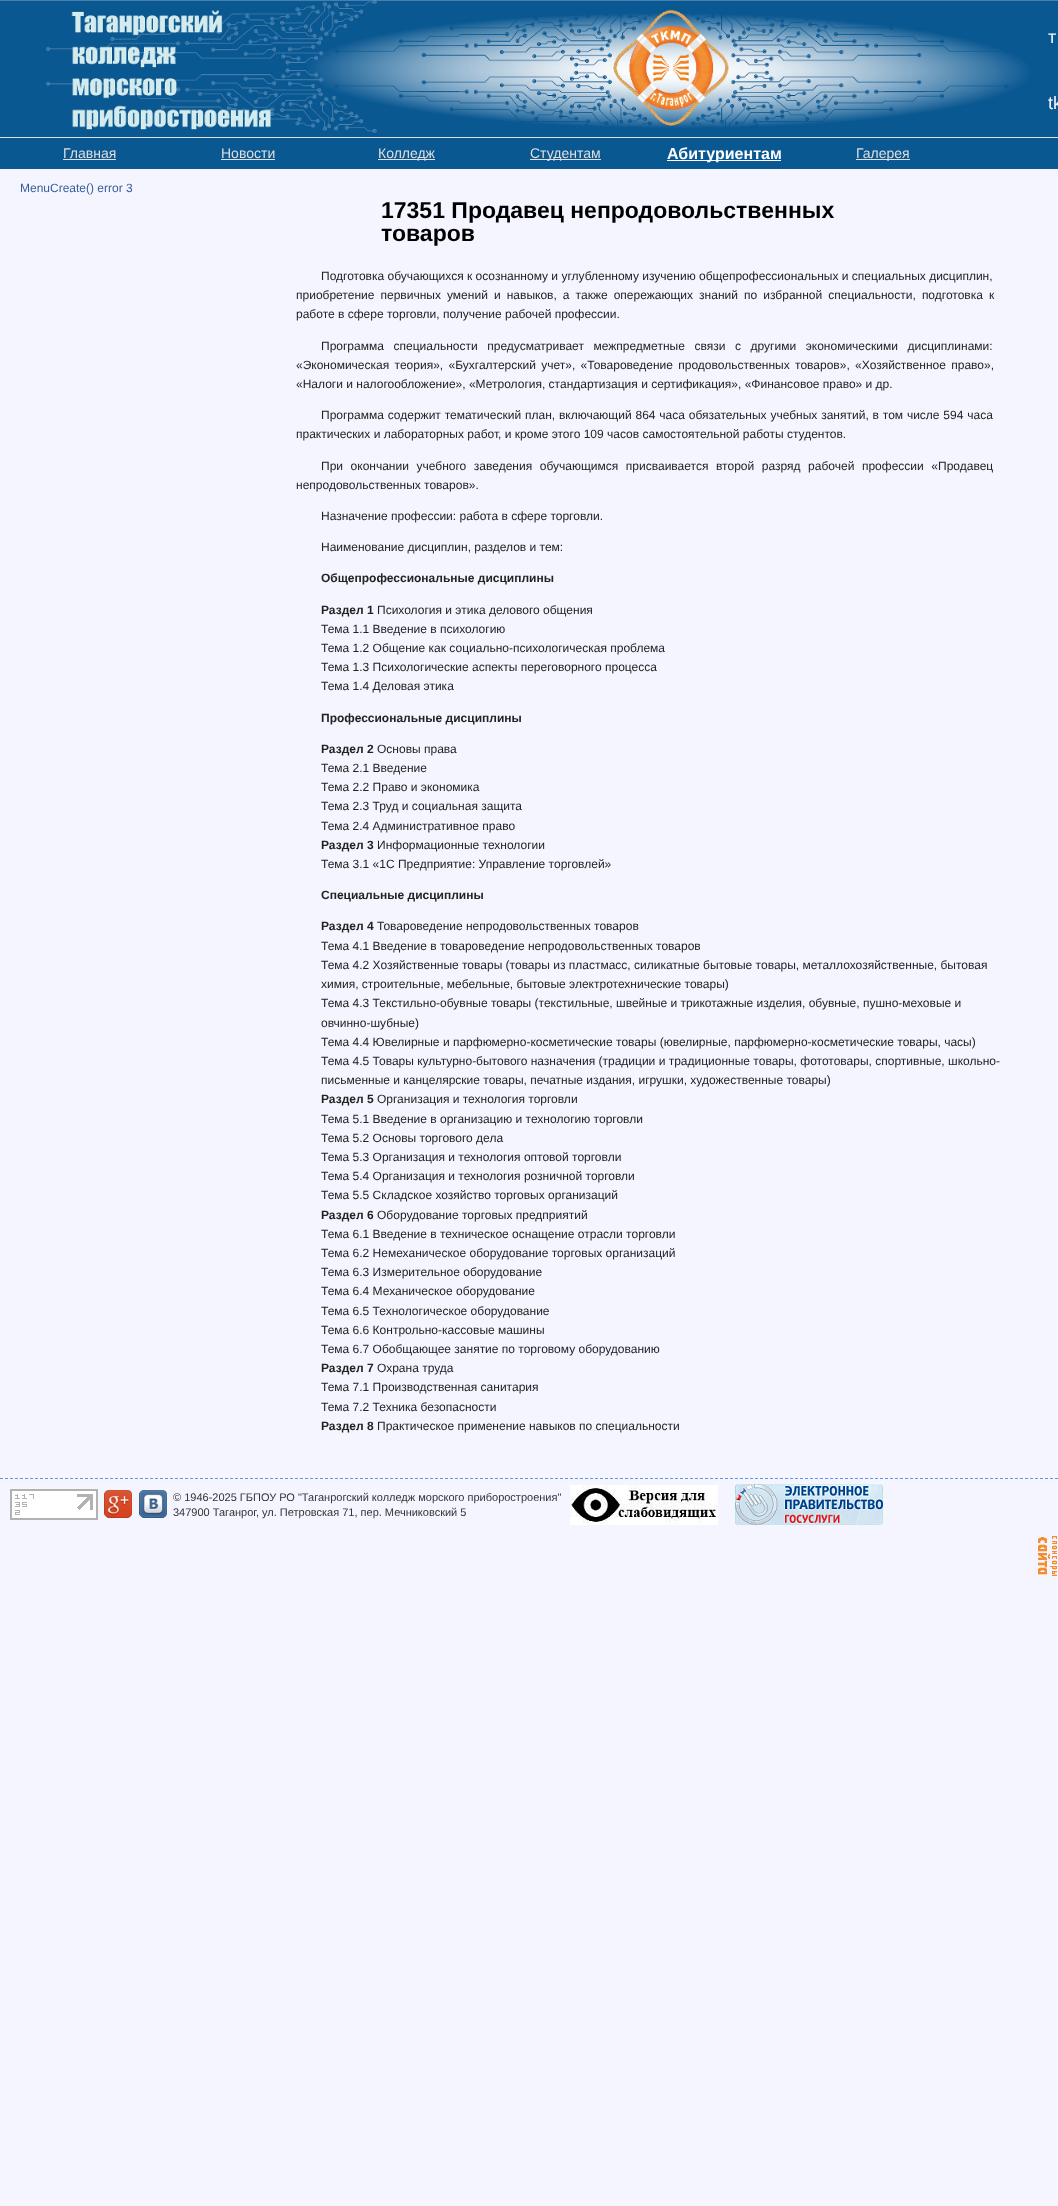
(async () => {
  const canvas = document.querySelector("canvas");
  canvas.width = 1058;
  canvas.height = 2206;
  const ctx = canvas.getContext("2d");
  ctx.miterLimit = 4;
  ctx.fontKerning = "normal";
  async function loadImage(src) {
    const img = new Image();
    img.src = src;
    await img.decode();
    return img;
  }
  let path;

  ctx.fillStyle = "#f5f5ff";
  ctx.fillRect(0, 0, 1058, 2206);
  ctx.fillStyle = "#dde4e6";
  ctx.fillRect(0, 137, 1058, 1);
  ctx.drawImage(await loadImage("img/1.png"), 0, 0, 1058, 137);
  for (const [x, y, w, h, color] of [
    [0, 138, 1058, 31, "#0a5892"],
    [63, 159, 53, 1, "#dfdfdf"],
    [221, 159, 54, 1, "#dfdfdf"],
    [378, 159, 57, 1, "#dfdfdf"],
    [530, 159, 71, 1, "#dfdfdf"],
    [667, 160, 114, 1, "#ffffff"],
    [856, 159, 54, 1, "#dfdfdf"],
  ]) {
    ctx.fillStyle = color;
    ctx.fillRect(x, y, w, h);
  }
  path = new Path2D("M0 1478.5H1058");
  ctx.strokeStyle = "#6495ed";
  ctx.setLineDash([3, 2]);
  ctx.stroke(path);
  ctx.drawImage(await loadImage("img/2.png"), 10, 1489, 88, 31);
  ctx.drawImage(await loadImage("img/3.png"), 104, 1490, 28, 28);
  ctx.drawImage(await loadImage("img/4.png"), 139, 1490, 28, 28);
  ctx.drawImage(await loadImage("img/5.png"), 570, 1485, 148, 40);
  ctx.drawImage(await loadImage("img/6.png"), 735, 1484, 148, 41);
  ctx.drawImage(await loadImage("img/7.png"), 1038, 1536, 19, 40);
  ctx.font = "18px Liberation Sans";
  ctx.fillStyle = "#f5f5ff";
  ctx.fillText("т", 1048, 43);
  ctx.fillText("tk", 1048, 109);
  ctx.font = "14px Liberation Sans";
  ctx.fillStyle = "#dfdfdf";
  for (const [text, x, y] of [
    ["Главная", 63, 158],
    ["Новости", 221, 158],
    ["Колледж", 378, 158],
    ["Студентам", 530, 158],
  ]) {
    ctx.fillText(text, x, y);
  }
  ctx.font = "bold 16px Liberation Sans";
  ctx.fillStyle = "#ffffff";
  ctx.fillText("Абитуриентам", 667, 159);
  ctx.font = "14px Liberation Sans";
  ctx.fillStyle = "#dfdfdf";
  ctx.fillText("Галерея", 856, 158);
  ctx.font = "12px Liberation Sans";
  ctx.fillStyle = "#375d9b";
  ctx.fillText("MenuCreate() error 3", 20, 192);
  ctx.font = "bold 23px Liberation Sans";
  ctx.fillStyle = "#000000";
  ctx.fillText("17351 Продавец непродовольственных", 381, 218);
  ctx.fillText("товаров", 381, 241);
  ctx.font = "12px Liberation Sans";
  ctx.fillStyle = "#222222";
  ctx.fillText("Подготовка обучающихся к осознанному и углубленному изучению общепрофессиональных и специальных дисциплин,", 321, 280);
  ctx.wordSpacing = "2.75px";
  ctx.fillText("приобретение первичных умений и навыков, а также опережающих знаний по избранной специальности, подготовка к", 296, 299);
  ctx.wordSpacing = "0px";
  ctx.fillText("работе в сфере торговли, получение рабочей профессии.", 296, 318);
  ctx.wordSpacing = "6.25px";
  ctx.fillText("Программа специальности предусматривает межпредметные связи с другими экономическими дисциплинами:", 321, 350);
  ctx.wordSpacing = "2px";
  ctx.fillText("«Экономическая теория», «Бухгалтерский учет», «Товароведение продовольственных товаров», «Хозяйственное право»,", 296, 369);
  ctx.wordSpacing = "0px";
  ctx.fillText("«Налоги и налогообложение», «Метрология, стандартизация и сертификация», «Финансовое право» и др.", 296, 388);
  ctx.wordSpacing = "0.5px";
  ctx.fillText("Программа содержит тематический план, включающий 864 часа обязательных учебных занятий, в том числе 594 часа", 321, 419);
  ctx.wordSpacing = "0px";
  ctx.fillText("практических и лабораторных работ, и кроме этого 109 часов самостоятельной работы студентов.", 296, 438);
  ctx.wordSpacing = "4.25px";
  ctx.fillText("При окончании учебного заведения обучающимся присваивается второй разряд рабочей профессии «Продавец", 321, 470);
  ctx.wordSpacing = "0px";
  for (const [text, x, y] of [
    ["непродовольственных товаров».", 296, 489],
    ["Назначение профессии: работа в сфере торговли.", 321, 520],
    ["Наименование дисциплин, разделов и тем:", 321, 551],
  ]) {
    ctx.fillText(text, x, y);
  }
  ctx.font = "bold 12px Liberation Sans";
  ctx.fillText("Общепрофессиональные дисциплины", 321, 582);
  ctx.fillText("Раздел 1", 321, 614);
  ctx.font = "12px Liberation Sans";
  for (const [text, x, y] of [
    ["Психология и этика делового общения", 377, 614],
    ["Тема 1.1 Введение в психологию", 321, 633],
    ["Тема 1.2 Общение как социально-психологическая проблема", 321, 652],
    ["Тема 1.3 Психологические аспекты переговорного процесса", 321, 671],
    ["Тема 1.4 Деловая этика", 321, 690],
  ]) {
    ctx.fillText(text, x, y);
  }
  ctx.font = "bold 12px Liberation Sans";
  ctx.fillText("Профессиональные дисциплины", 321, 722);
  ctx.fillText("Раздел 2", 321, 753);
  ctx.font = "12px Liberation Sans";
  for (const [text, x, y] of [
    ["Основы права", 377, 753],
    ["Тема 2.1 Введение", 321, 772],
    ["Тема 2.2 Право и экономика", 321, 791],
    ["Тема 2.3 Труд и социальная защита", 321, 810],
    ["Тема 2.4 Административное право", 321, 830],
  ]) {
    ctx.fillText(text, x, y);
  }
  ctx.font = "bold 12px Liberation Sans";
  ctx.fillText("Раздел 3", 321, 849);
  ctx.font = "12px Liberation Sans";
  ctx.fillText("Информационные технологии", 377, 849);
  ctx.fillText("Тема 3.1 «1С Предприятие: Управление торговлей»", 321, 868);
  ctx.font = "bold 12px Liberation Sans";
  ctx.fillText("Специальные дисциплины", 321, 899);
  ctx.fillText("Раздел 4", 321, 930);
  ctx.font = "12px Liberation Sans";
  for (const [text, x, y] of [
    ["Товароведение непродовольственных товаров", 377, 930],
    ["Тема 4.1 Введение в товароведение непродовольственных товаров", 321, 950],
    ["Тема 4.2 Хозяйственные товары (товары из пластмасс, силикатные бытовые товары, металлохозяйственные, бытовая", 321, 969],
    ["химия, строительные, мебельные, бытовые электротехнические товары)", 321, 988],
    ["Тема 4.3 Текстильно-обувные товары (текстильные, швейные и трикотажные изделия, обувные, пушно-меховые и", 321, 1007],
    ["овчинно-шубные)", 321, 1027],
    ["Тема 4.4 Ювелирные и парфюмерно-косметические товары (ювелирные, парфюмерно-косметические товары, часы)", 321, 1046],
    ["Тема 4.5 Товары культурно-бытового назначения (традиции и традиционные товары, фототовары, спортивные, школьно-", 321, 1065],
    ["письменные и канцелярские товары, печатные издания, игрушки, художественные товары)", 321, 1084],
  ]) {
    ctx.fillText(text, x, y);
  }
  ctx.font = "bold 12px Liberation Sans";
  ctx.fillText("Раздел 5", 321, 1103);
  ctx.font = "12px Liberation Sans";
  for (const [text, x, y] of [
    ["Организация и технология торговли", 377, 1103],
    ["Тема 5.1 Введение в организацию и технологию торговли", 321, 1123],
    ["Тема 5.2 Основы торгового дела", 321, 1142],
    ["Тема 5.3 Организация и технология оптовой торговли", 321, 1161],
    ["Тема 5.4 Организация и технология розничной торговли", 321, 1180],
    ["Тема 5.5 Складское хозяйство торговых организаций", 321, 1199],
  ]) {
    ctx.fillText(text, x, y);
  }
  ctx.font = "bold 12px Liberation Sans";
  ctx.fillText("Раздел 6", 321, 1219);
  ctx.font = "12px Liberation Sans";
  for (const [text, x, y] of [
    ["Оборудование торговых предприятий", 377, 1219],
    ["Тема 6.1 Введение в техническое оснащение отрасли торговли", 321, 1238],
    ["Тема 6.2 Немеханическое оборудование торговых организаций", 321, 1257],
    ["Тема 6.3 Измерительное оборудование", 321, 1276],
    ["Тема 6.4 Механическое оборудование", 321, 1295],
    ["Тема 6.5 Технологическое оборудование", 321, 1315],
    ["Тема 6.6 Контрольно-кассовые машины", 321, 1334],
    ["Тема 6.7 Обобщающее занятие по торговому оборудованию", 321, 1353],
  ]) {
    ctx.fillText(text, x, y);
  }
  ctx.font = "bold 12px Liberation Sans";
  ctx.fillText("Раздел 7", 321, 1372);
  ctx.font = "12px Liberation Sans";
  for (const [text, x, y] of [
    ["Охрана труда", 377, 1372],
    ["Тема 7.1 Производственная санитария", 321, 1391],
    ["Тема 7.2 Техника безопасности", 321, 1411],
  ]) {
    ctx.fillText(text, x, y);
  }
  ctx.font = "bold 12px Liberation Sans";
  ctx.fillText("Раздел 8", 321, 1430);
  ctx.font = "12px Liberation Sans";
  ctx.fillText("Практическое применение навыков по специальности", 377, 1430);
  ctx.font = "11px Liberation Sans";
  ctx.fillStyle = "#333333";
  ctx.fillText("© 1946-2025 ГБПОУ РО \"Таганрогский колледж морского приборостроения\"", 173, 1501);
  ctx.fillText("347900 Таганрог, ул. Петровская 71, пер. Мечниковский 5", 173, 1516);
})();
